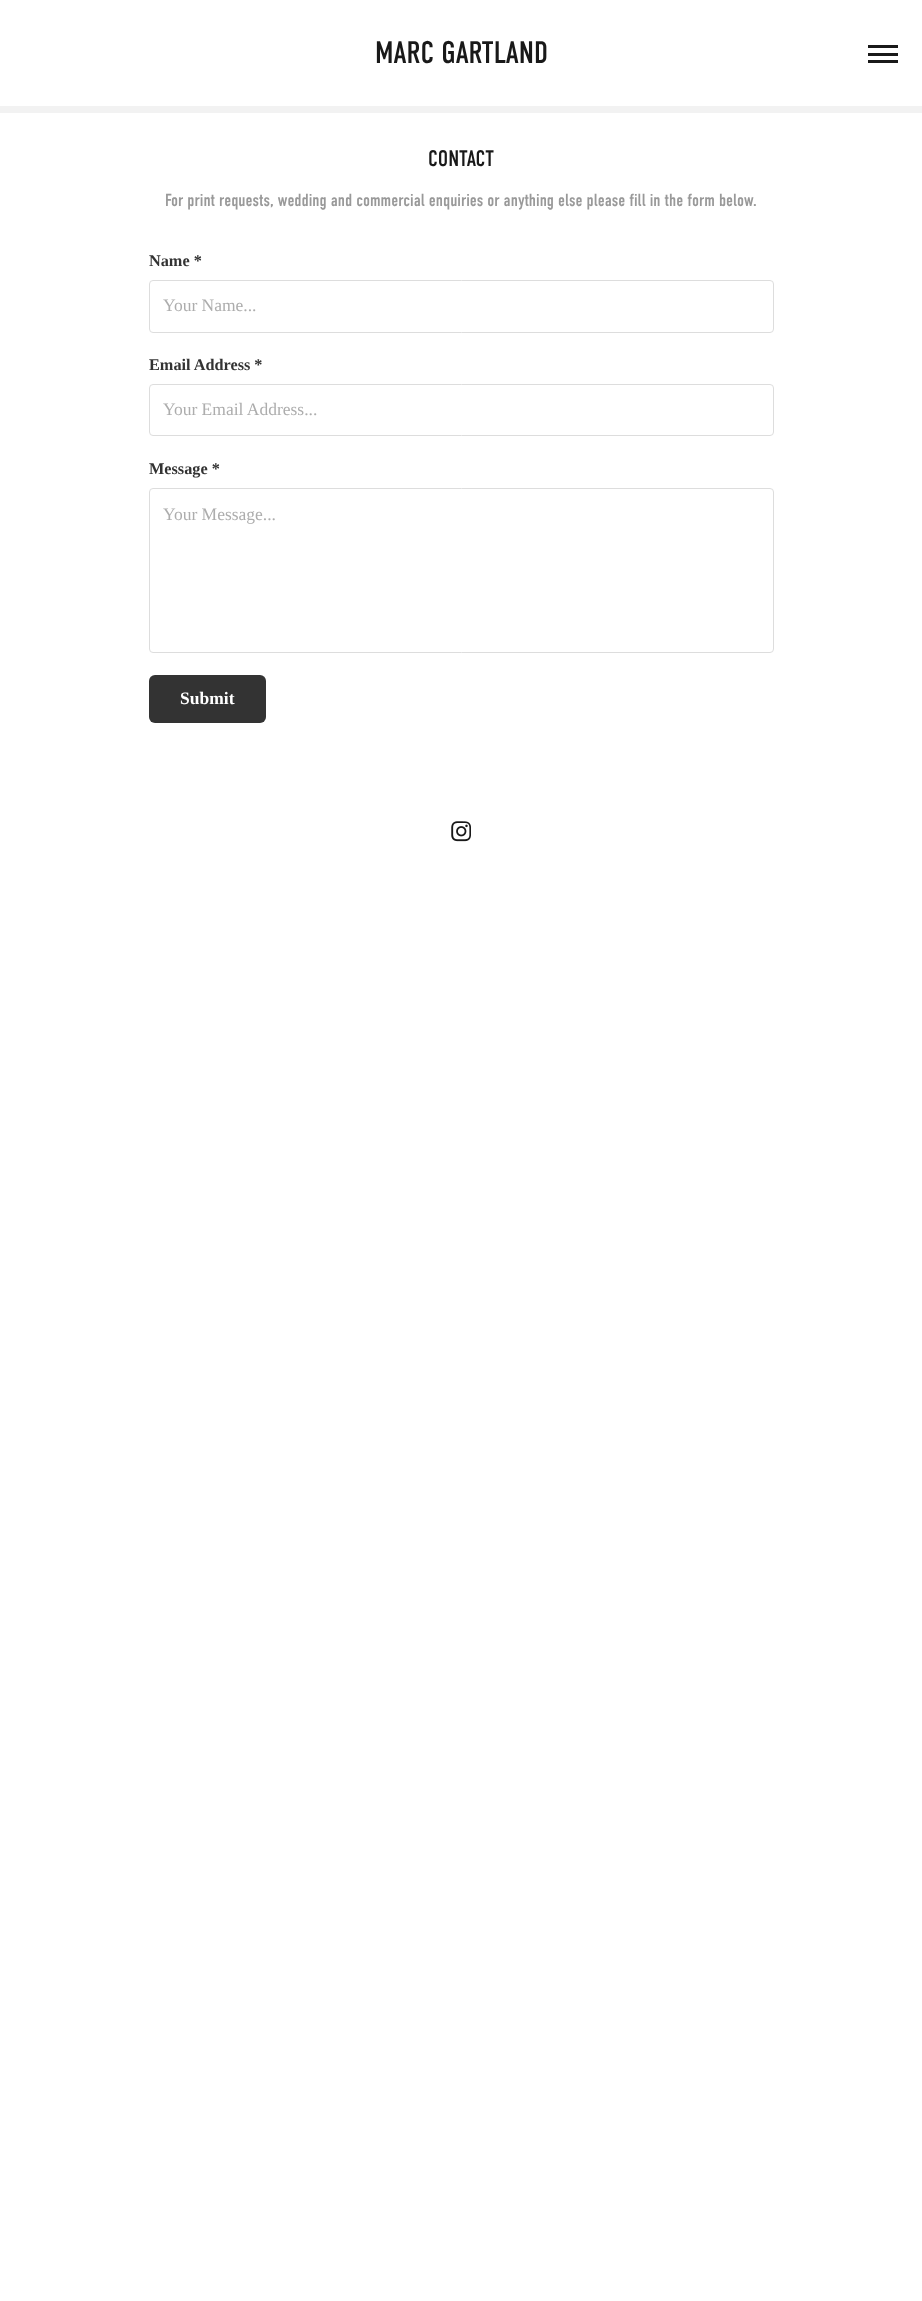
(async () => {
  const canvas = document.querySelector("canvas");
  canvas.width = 922;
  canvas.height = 2301;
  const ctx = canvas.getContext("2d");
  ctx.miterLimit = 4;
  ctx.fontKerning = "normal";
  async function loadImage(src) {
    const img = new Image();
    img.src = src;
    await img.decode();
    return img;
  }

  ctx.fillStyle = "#ffffff";
  ctx.fillRect(0, 0, 922, 2301);
  for (const [x, y, w, h, color] of [
    [0, 106, 922, 7, "#f2f2f2"],
    [868, 45, 30, 3, "#191919"],
    [868, 53, 30, 3, "#191919"],
    [868, 60, 30, 3, "#191919"],
  ]) {
    ctx.fillStyle = color;
    ctx.fillRect(x, y, w, h);
  }
  ctx.beginPath();
  ctx.roundRect(149.5, 280.5, 624, 52, 3.5);
  ctx.strokeStyle = "#dddddd";
  ctx.stroke();
  ctx.beginPath();
  ctx.roundRect(149.5, 384.5, 624, 51, 3.5);
  ctx.stroke();
  ctx.beginPath();
  ctx.roundRect(149.5, 488.5, 624, 164, 3.5);
  ctx.stroke();
  ctx.fillStyle = "#333333";
  ctx.beginPath();
  ctx.roundRect(149, 675, 117, 48, 6);
  ctx.fill();
  ctx.drawImage(await loadImage("img/1.png"), 451, 821, 20, 21);
  ctx.font = "31.25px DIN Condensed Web";
  ctx.fillStyle = "#191919";
  ctx.fillText("MARC GARTLAND", 375, 63);
  ctx.font = "22.5px DIN Condensed Web";
  ctx.fillText("CONTACT", 428, 166);
  ctx.font = "17.5px DIN Condensed Web";
  ctx.fillStyle = "#999999";
  ctx.fillText("For print requests, wedding and commercial enquiries or anything else please fill in the form below.", 165, 206);
  ctx.font = "bold 16.25px Liberation Serif";
  ctx.fillStyle = "#333333";
  ctx.fillText("Name *", 149, 266);
  ctx.font = "17.5px Liberation Serif";
  ctx.fillStyle = "#adadad";
  ctx.fillText("Your Name...", 163, 311);
  ctx.font = "bold 16.25px Liberation Serif";
  ctx.fillStyle = "#333333";
  ctx.fillText("Email Address *", 149, 370);
  ctx.font = "17.5px Liberation Serif";
  ctx.fillStyle = "#adadad";
  ctx.fillText("Your Email Address...", 163, 415);
  ctx.font = "bold 16.25px Liberation Serif";
  ctx.fillStyle = "#333333";
  ctx.fillText("Message *", 149, 474);
  ctx.font = "17.5px Liberation Serif";
  ctx.fillStyle = "#adadad";
  ctx.fillText("Your Message...", 163, 520);
  ctx.font = "bold 17.5px Liberation Serif";
  ctx.fillStyle = "#ffffff";
  ctx.fillText("Submit", 180, 704);
})();
